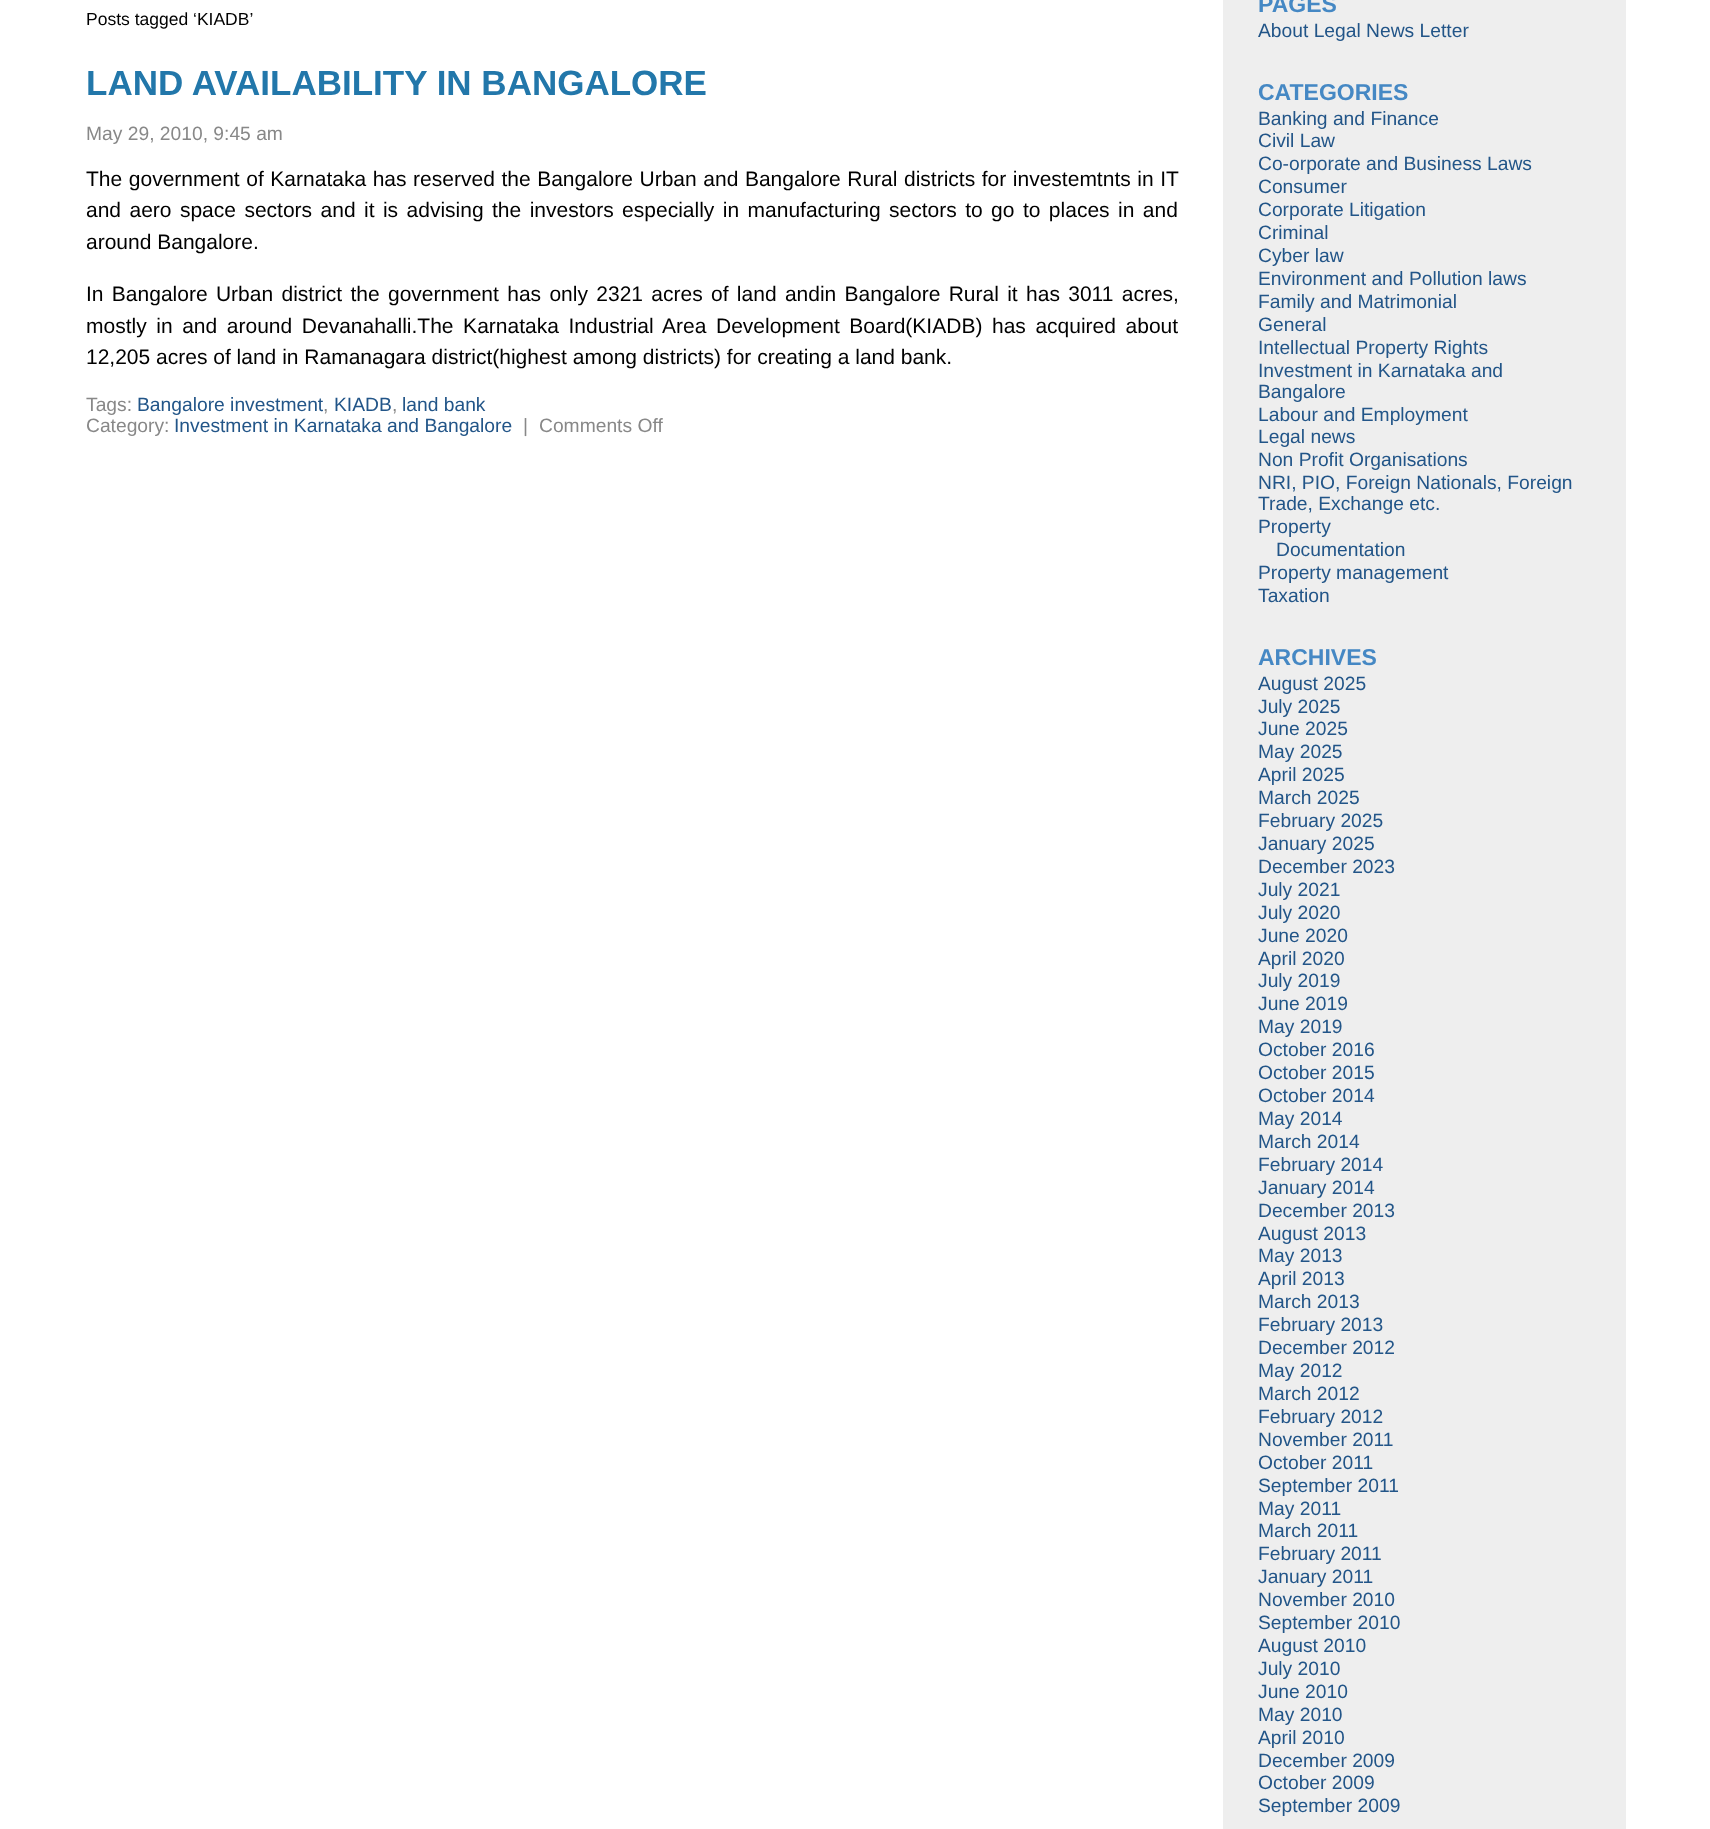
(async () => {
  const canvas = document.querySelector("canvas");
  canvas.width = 1710;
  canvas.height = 1829;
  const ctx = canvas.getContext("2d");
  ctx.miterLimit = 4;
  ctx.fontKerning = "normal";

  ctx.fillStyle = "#ffffff";
  ctx.fillRect(0, 0, 1710, 1829);
  ctx.fillStyle = "#eeeeee";
  ctx.fillRect(1223, 0, 403, 1829);
  ctx.font = "17.5px Liberation Sans";
  ctx.fillStyle = "#000000";
  ctx.fillText("Posts tagged ‘KIADB’", 86, 25);
  ctx.font = "bold 35px Liberation Sans";
  ctx.fillStyle = "#2277aa";
  ctx.fillText("LAND AVAILABILITY IN BANGALORE", 86, 95);
  ctx.font = "19.25px Liberation Sans";
  ctx.fillStyle = "#888888";
  ctx.fillText("May 29, 2010, 9:45 am", 86, 140);
  ctx.wordSpacing = "0.75px";
  ctx.font = "21px Liberation Sans";
  ctx.fillStyle = "#000000";
  ctx.fillText("The government of Karnataka has reserved the Bangalore Urban and Bangalore Rural districts for investemtnts in IT", 86, 186);
  ctx.wordSpacing = "2.6px";
  ctx.fillText("and aero space sectors and it is advising the investors especially in manufacturing sectors to go to places in and", 86, 217);
  ctx.wordSpacing = "0px";
  ctx.fillText("around Bangalore.", 86, 249);
  ctx.wordSpacing = "2.5px";
  ctx.fillText("In Bangalore Urban district the government has only 2321 acres of land andin Bangalore Rural it has 3011 acres,", 86, 301);
  ctx.wordSpacing = "3.75px";
  ctx.fillText("mostly in and around Devanahalli.The Karnataka Industrial Area Development Board(KIADB) has acquired about", 86, 333);
  ctx.wordSpacing = "0px";
  ctx.fillText("12,205 acres of land in Ramanagara district(highest among districts) for creating a land bank.", 86, 364);
  ctx.font = "19.25px Liberation Sans";
  ctx.fillStyle = "#888888";
  ctx.fillText("Tags:", 86, 411);
  ctx.fillStyle = "#225588";
  ctx.fillText("Bangalore investment", 137, 411);
  ctx.fillStyle = "#888888";
  ctx.fillText(",", 323, 411);
  ctx.fillStyle = "#225588";
  ctx.fillText("KIADB", 334, 411);
  ctx.fillStyle = "#888888";
  ctx.fillText(",", 392, 411);
  ctx.fillStyle = "#225588";
  ctx.fillText("land bank", 402, 411);
  ctx.fillStyle = "#888888";
  ctx.fillText("Category:", 86, 432);
  ctx.fillStyle = "#225588";
  ctx.fillText("Investment in Karnataka and Bangalore", 174, 432);
  ctx.fillStyle = "#888888";
  ctx.fillText("|", 523, 432);
  ctx.fillText("Comments Off", 539, 432);
  ctx.font = "bold 23px Liberation Sans";
  ctx.fillStyle = "#4588c4";
  ctx.fillText("PAGES", 1258, 12);
  ctx.font = "19.25px Liberation Sans";
  ctx.fillStyle = "#225588";
  ctx.fillText("About Legal News Letter", 1258, 37);
  ctx.font = "bold 23px Liberation Sans";
  ctx.fillStyle = "#4588c4";
  ctx.fillText("CATEGORIES", 1258, 100);
  ctx.font = "19.25px Liberation Sans";
  ctx.fillStyle = "#225588";
  for (const [text, x, y] of [
    ["Banking and Finance", 1258, 125],
    ["Civil Law", 1258, 147],
    ["Co-orporate and Business Laws", 1258, 170],
    ["Consumer", 1258, 193],
    ["Corporate Litigation", 1258, 216],
    ["Criminal", 1258, 239],
    ["Cyber law", 1258, 262],
    ["Environment and Pollution laws", 1258, 285],
    ["Family and Matrimonial", 1258, 308],
    ["General", 1258, 331],
    ["Intellectual Property Rights", 1258, 354],
    ["Investment in Karnataka and", 1258, 377],
    ["Bangalore", 1258, 398],
    ["Labour and Employment", 1258, 421],
    ["Legal news", 1258, 443],
    ["Non Profit Organisations", 1258, 466],
    ["NRI, PIO, Foreign Nationals, Foreign", 1258, 489],
    ["Trade, Exchange etc.", 1258, 510],
    ["Property", 1258, 533],
    ["Documentation", 1276, 556],
    ["Property management", 1258, 579],
    ["Taxation", 1258, 602],
  ]) {
    ctx.fillText(text, x, y);
  }
  ctx.font = "bold 23px Liberation Sans";
  ctx.fillStyle = "#4588c4";
  ctx.fillText("ARCHIVES", 1258, 665);
  ctx.font = "19.25px Liberation Sans";
  ctx.fillStyle = "#225588";
  for (const [text, x, y] of [
    ["August 2025", 1258, 690],
    ["July 2025", 1258, 713],
    ["June 2025", 1258, 735],
    ["May 2025", 1258, 758],
    ["April 2025", 1258, 781],
    ["March 2025", 1258, 804],
    ["February 2025", 1258, 827],
    ["January 2025", 1258, 850],
    ["December 2023", 1258, 873],
    ["July 2021", 1258, 896],
    ["July 2020", 1258, 919],
    ["June 2020", 1258, 942],
    ["April 2020", 1258, 965],
    ["July 2019", 1258, 987],
    ["June 2019", 1258, 1010],
    ["May 2019", 1258, 1033],
    ["October 2016", 1258, 1056],
    ["October 2015", 1258, 1079],
    ["October 2014", 1258, 1102],
    ["May 2014", 1258, 1125],
    ["March 2014", 1258, 1148],
    ["February 2014", 1258, 1171],
    ["January 2014", 1258, 1194],
    ["December 2013", 1258, 1217],
    ["August 2013", 1258, 1240],
    ["May 2013", 1258, 1262],
    ["April 2013", 1258, 1285],
    ["March 2013", 1258, 1308],
    ["February 2013", 1258, 1331],
    ["December 2012", 1258, 1354],
    ["May 2012", 1258, 1377],
    ["March 2012", 1258, 1400],
    ["February 2012", 1258, 1423],
    ["November 2011", 1258, 1446],
    ["October 2011", 1258, 1469],
    ["September 2011", 1258, 1492],
    ["May 2011", 1258, 1515],
    ["March 2011", 1258, 1537],
    ["February 2011", 1258, 1560],
    ["January 2011", 1258, 1583],
    ["November 2010", 1258, 1606],
    ["September 2010", 1258, 1629],
    ["August 2010", 1258, 1652],
    ["July 2010", 1258, 1675],
    ["June 2010", 1258, 1698],
    ["May 2010", 1258, 1721],
    ["April 2010", 1258, 1744],
    ["December 2009", 1258, 1767],
    ["October 2009", 1258, 1789],
    ["September 2009", 1258, 1812],
  ]) {
    ctx.fillText(text, x, y);
  }
})();
